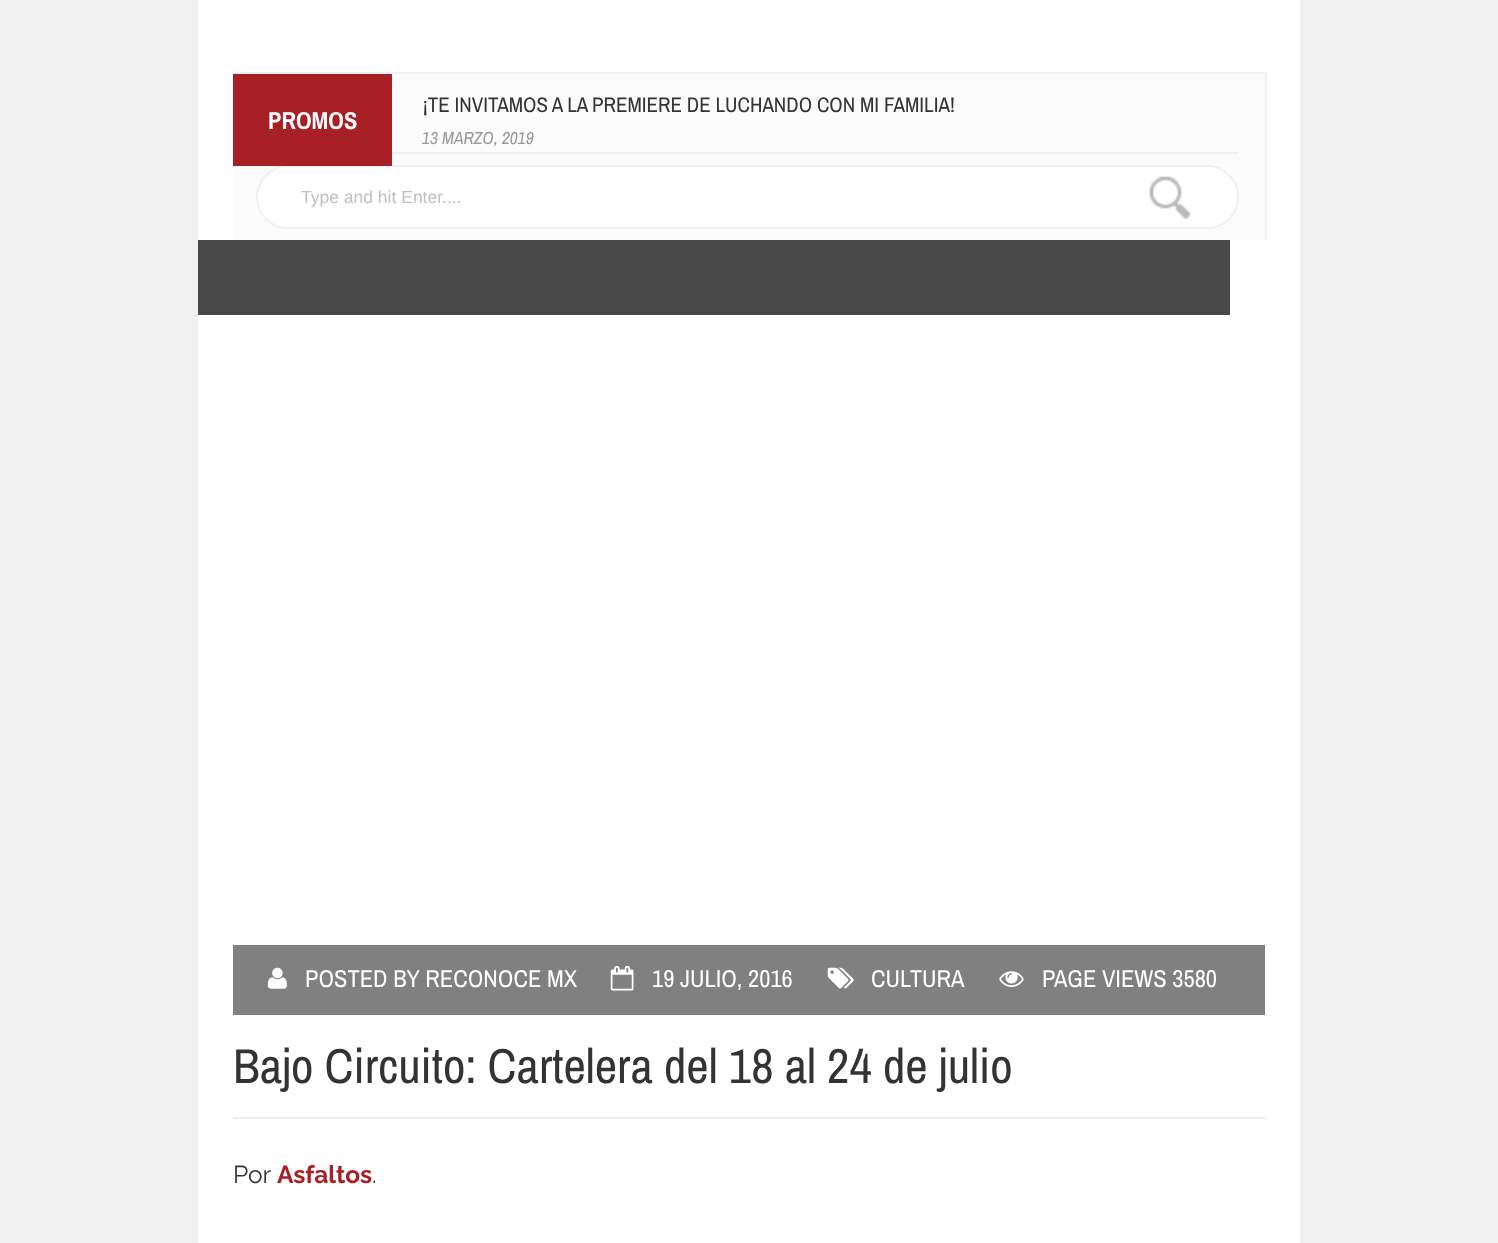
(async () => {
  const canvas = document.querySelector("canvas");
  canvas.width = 1498;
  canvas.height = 1243;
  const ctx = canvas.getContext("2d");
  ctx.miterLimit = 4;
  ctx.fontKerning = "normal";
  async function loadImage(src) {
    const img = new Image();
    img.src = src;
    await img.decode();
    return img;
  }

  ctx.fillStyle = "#f0f0f0";
  ctx.fillRect(0, 0, 1498, 1243);
  for (const [x, y, w, h, color] of [
    [198, 0, 1102, 1243, "#ffffff"],
    [233, 74, 1032, 166, "#fbfbfb"],
    [233, 72, 1034, 2, "#f0f0f0"],
    [1265, 72, 2, 168, "#f0f0f0"],
  ]) {
    ctx.fillStyle = color;
    ctx.fillRect(x, y, w, h);
  }
  ctx.fillStyle = "#ffffff";
  ctx.beginPath();
  ctx.roundRect(256, 165, 983, 64, 32);
  ctx.fill();
  ctx.drawImage(await loadImage("img/1.png"), 1149, 176, 42, 43);
  ctx.beginPath();
  ctx.roundRect(257, 166, 981, 62, 31);
  ctx.strokeStyle = "#f0f0f0";
  ctx.lineWidth = 2;
  ctx.stroke();
  for (const [x, y, w, h, color] of [
    [233, 74, 159, 92, "#a81f25"],
    [392, 152, 847, 2, "#ededed"],
    [198, 240, 1032, 75, "#494949"],
    [233, 945, 1032, 70, "#808080"],
  ]) {
    ctx.fillStyle = color;
    ctx.fillRect(x, y, w, h);
  }
  ctx.drawImage(await loadImage("img/2.png"), 267, 967, 20, 22);
  ctx.drawImage(await loadImage("img/3.png"), 610, 966, 24, 25);
  ctx.drawImage(await loadImage("img/4.png"), 827, 967, 27, 22);
  ctx.drawImage(await loadImage("img/5.png"), 999, 971, 25, 16);
  ctx.fillStyle = "#ededed";
  ctx.fillRect(233, 1117, 1032, 2);
  ctx.font = "bold 24.5px Archivo Narrow";
  ctx.fillStyle = "#ffffff";
  ctx.fillText("PROMOS", 268, 129);
  ctx.font = "21px Archivo Narrow";
  ctx.fillStyle = "#333333";
  ctx.fillText("¡TE INVITAMOS A LA PREMIERE DE LUCHANDO CON MI FAMILIA!", 422, 112);
  ctx.font = "italic 17.5px Archivo Narrow";
  ctx.fillStyle = "#999999";
  ctx.fillText("13 MARZO, 2019", 422, 144);
  ctx.font = "17.5px Liberation Sans";
  ctx.fillStyle = "#c0c0c0";
  ctx.fillText("Type and hit Enter....", 301, 203);
  ctx.font = "24.5px Archivo Narrow";
  ctx.fillStyle = "#ffffff";
  for (const [text, x, y] of [
    ["POSTED BY RECONOCE MX", 305, 987],
    ["19 JULIO, 2016", 652, 987],
    ["CULTURA", 871, 987],
    ["PAGE VIEWS 3580", 1042, 987],
  ]) {
    ctx.fillText(text, x, y);
  }
  ctx.font = "49px Archivo Narrow";
  ctx.fillStyle = "#333333";
  ctx.fillText("Bajo Circuito: Cartelera del 18 al 24 de julio", 233, 1083);
  ctx.font = "24.5px Raleway";
  ctx.fillText("Por", 233, 1183);
  ctx.font = "bold 24.5px Raleway";
  ctx.fillStyle = "#a81f25";
  ctx.fillText("Asfaltos", 277, 1183);
  ctx.font = "24.5px Raleway";
  ctx.fillStyle = "#333333";
  ctx.fillText(".", 372, 1183);
})();
